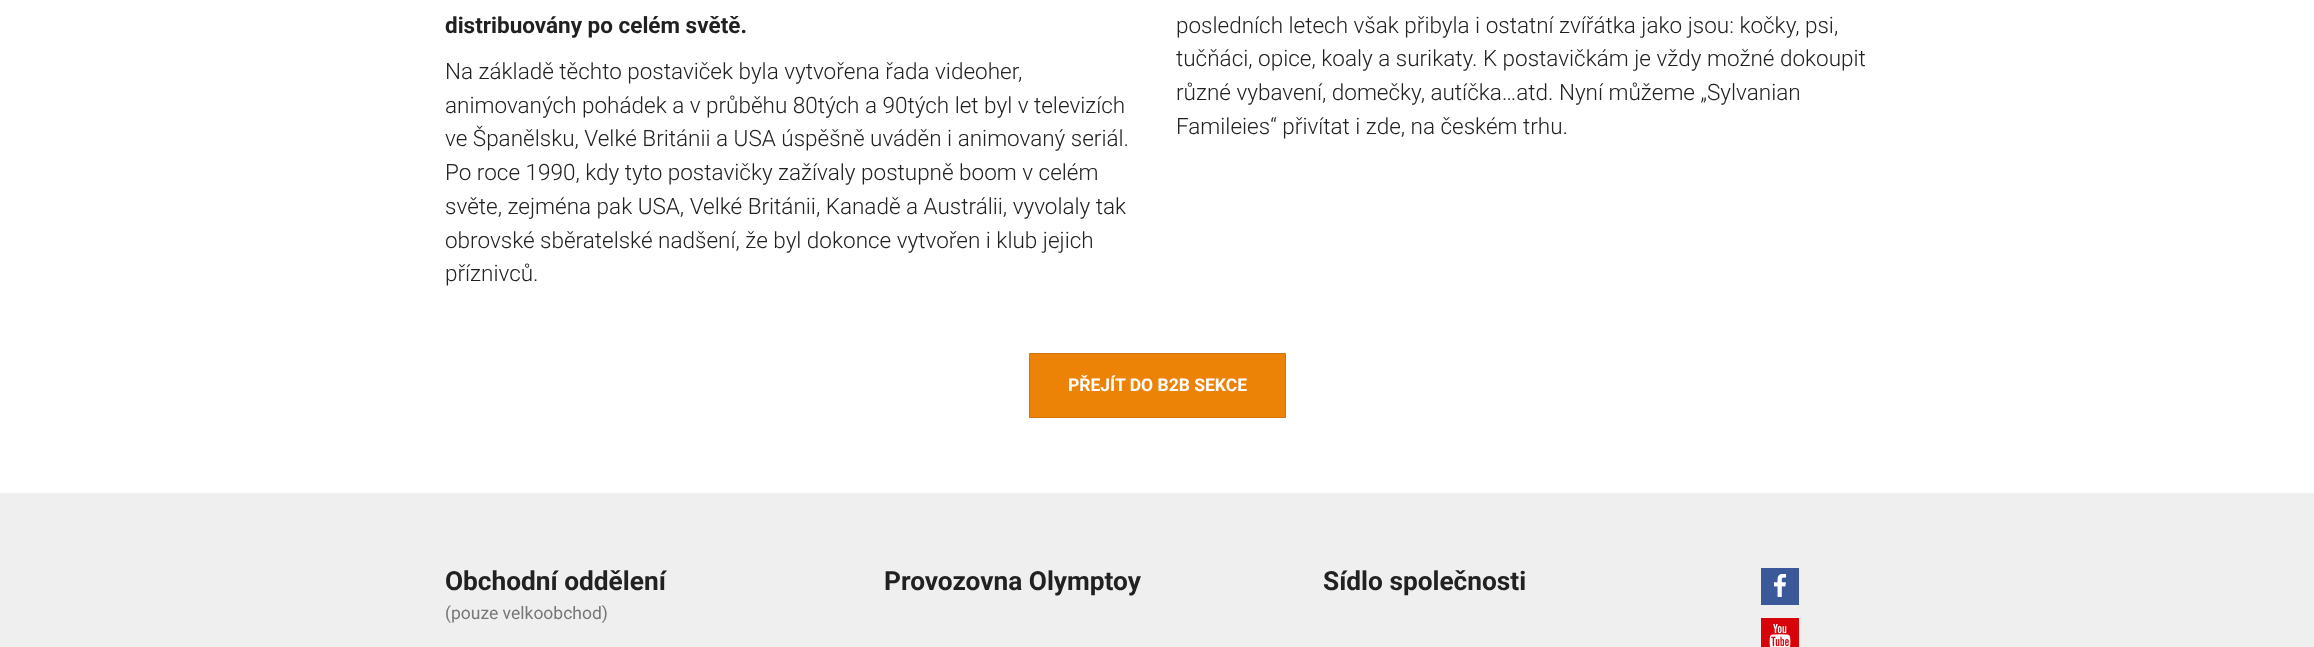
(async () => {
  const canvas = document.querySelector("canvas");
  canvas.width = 2314;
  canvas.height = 647;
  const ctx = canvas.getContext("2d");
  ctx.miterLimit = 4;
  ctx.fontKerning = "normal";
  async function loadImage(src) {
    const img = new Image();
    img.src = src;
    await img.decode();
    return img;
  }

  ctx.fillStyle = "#ffffff";
  ctx.fillRect(0, 0, 2314, 647);
  ctx.fillStyle = "#ec8307";
  ctx.beginPath();
  ctx.rect(1029.5, 353.5, 256, 64);
  ctx.fill();
  ctx.strokeStyle = "#d37506";
  ctx.stroke();
  ctx.fillStyle = "#efefef";
  ctx.fillRect(0, 493, 2314, 154);
  ctx.fillStyle = "#3b5998";
  ctx.fillRect(1761, 568, 38, 37);
  ctx.drawImage(await loadImage("img/1.png"), 1774, 574, 13, 23);
  ctx.fillStyle = "#d70409";
  ctx.fillRect(1761, 618, 38, 29);
  ctx.drawImage(await loadImage("img/2.png"), 1769, 624, 22, 23);
  ctx.font = "bold 22.5px Roboto";
  ctx.fillStyle = "#212121";
  ctx.fillText("distribuovány po celém světě.", 445, 33);
  ctx.font = "300 22.5px Roboto";
  for (const [text, x, y] of [
    ["Na základě těchto postaviček byla vytvořena řada videoher,", 445, 79],
    ["animovaných pohádek a v průběhu 80tých a 90tých let byl v televizích", 445, 113],
    ["ve Španělsku, Velké Británii a USA úspěšně uváděn i animovaný seriál.", 445, 146],
    ["Po roce 1990, kdy tyto postavičky zažívaly postupně boom v celém", 445, 180],
    ["světe, zejména pak USA, Velké Británii, Kanadě a Austrálii, vyvolaly tak", 445, 214],
    ["obrovské sběratelské nadšení, že byl dokonce vytvořen i klub jejich", 445, 248],
    ["příznivců.", 445, 281],
    ["posledních letech však přibyla i ostatní zvířátka jako jsou: kočky, psi,", 1176, 33],
    ["tučňáci, opice, koaly a surikaty. K postavičkám je vždy možné dokoupit", 1176, 66],
    ["různé vybavení, domečky, autíčka…atd. Nyní můžeme „Sylvanian", 1176, 100],
    ["Famileies“ přivítat i zde, na českém trhu.", 1176, 134],
  ]) {
    ctx.fillText(text, x, y);
  }
  ctx.font = "bold 17.5px Roboto";
  ctx.fillStyle = "#ffffff";
  ctx.fillText("PŘEJÍT DO B2B SEKCE", 1068, 391);
  ctx.font = "bold 26.25px Roboto";
  ctx.fillStyle = "#212121";
  ctx.fillText("Obchodní oddělení", 445, 590);
  ctx.font = "17.5px Roboto";
  ctx.fillStyle = "#777777";
  ctx.fillText("(pouze velkoobchod)", 445, 619);
  ctx.font = "bold 26.25px Roboto";
  ctx.fillStyle = "#212121";
  ctx.fillText("Provozovna Olymptoy", 884, 590);
  ctx.fillText("Sídlo společnosti", 1323, 590);
})();
